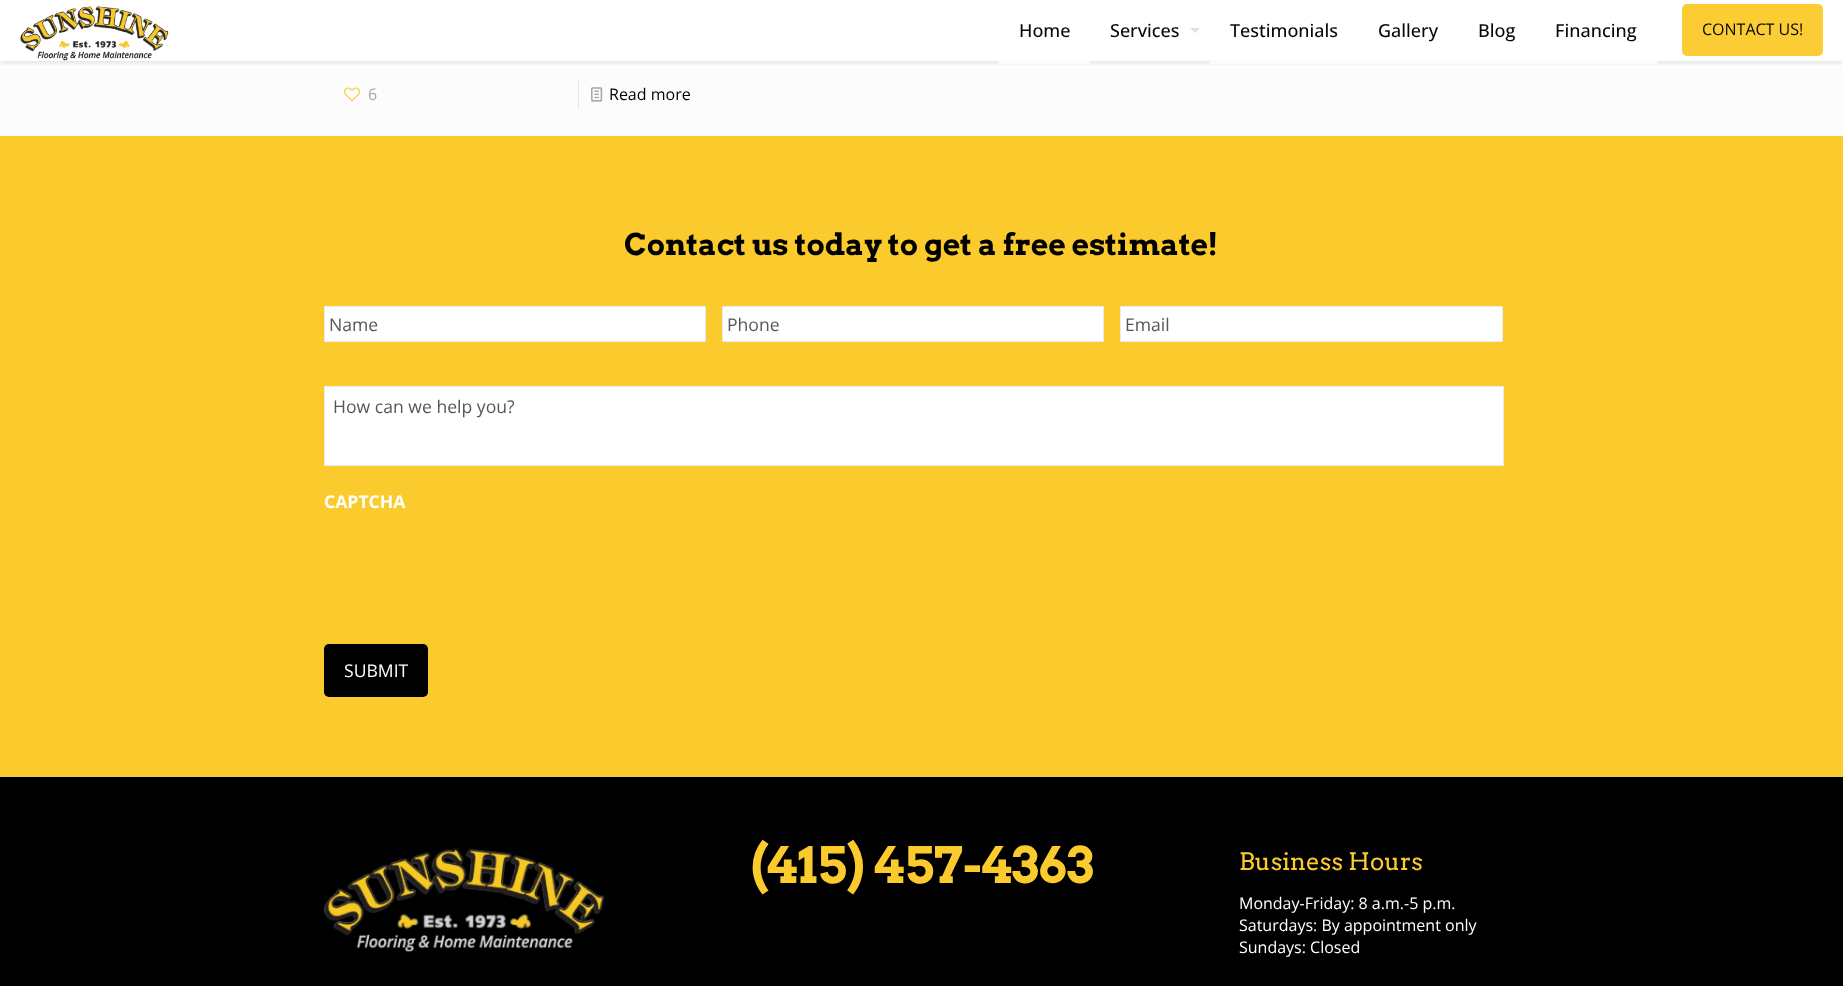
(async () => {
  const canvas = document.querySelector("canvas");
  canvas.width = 1843;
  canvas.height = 986;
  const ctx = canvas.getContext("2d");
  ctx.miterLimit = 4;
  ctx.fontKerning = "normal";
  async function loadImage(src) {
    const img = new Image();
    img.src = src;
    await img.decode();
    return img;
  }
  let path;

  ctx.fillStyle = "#fcfcfc";
  ctx.fillRect(0, 0, 1843, 986);
  ctx.fillStyle = "#ffffff";
  ctx.fillRect(0, 0, 1843, 61);
  ctx.save();
  ctx.beginPath();
  ctx.rect(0, 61, 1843, 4);
  ctx.clip();
  ctx.fillStyle = "rgba(8, 8, 8, 0.1)";
  ctx.filter = "blur(2.5px)";
  ctx.beginPath();
  ctx.rect(0, 2, 1843, 61);
  ctx.fill();
  ctx.filter = "none";
  ctx.restore();
  ctx.drawImage(await loadImage("img/1.png"), 20, 5, 149, 56);
  ctx.fillStyle = "#fcfcfc";
  ctx.fillRect(999, 60, 91, 4);
  ctx.fillStyle = "#e0e0e0";
  path = new Path2D("M1190 28H1200L1195 33Z");
  ctx.fill(path);
  ctx.fillStyle = "#fcfcfc";
  ctx.fillRect(1210, 60, 447, 4);
  ctx.fillStyle = "#fbcc33";
  ctx.beginPath();
  ctx.roundRect(1682, 4, 141, 52, 5);
  ctx.fill();
  ctx.drawImage(await loadImage("img/2.png"), 344, 87, 16, 15);
  ctx.fillStyle = "#e8e8e8";
  ctx.fillRect(578, 79, 1, 30);
  ctx.drawImage(await loadImage("img/3.png"), 591, 87, 12, 15);
  ctx.fillStyle = "#000000";
  ctx.fillRect(0, 777, 1843, 209);
  ctx.fillStyle = "#fbcb2d";
  ctx.fillRect(0, 136, 1843, 641);
  ctx.fillStyle = "#ffffff";
  ctx.beginPath();
  ctx.rect(324.5, 306.5, 381, 35);
  ctx.fill();
  ctx.strokeStyle = "#ebebeb";
  ctx.stroke();
  ctx.beginPath();
  ctx.rect(722.5, 306.5, 381, 35);
  ctx.fill();
  ctx.stroke();
  ctx.beginPath();
  ctx.rect(1120.5, 306.5, 382, 35);
  ctx.fill();
  ctx.stroke();
  ctx.beginPath();
  ctx.rect(324.5, 386.5, 1179, 79);
  ctx.fill();
  ctx.stroke();
  ctx.fillStyle = "#000000";
  ctx.beginPath();
  ctx.roundRect(324, 644, 104, 53, 5);
  ctx.fill();
  ctx.drawImage(await loadImage("img/4.png"), 324, 847, 281, 105);
  ctx.font = "500 18px Open Sans";
  ctx.fillStyle = "#080808";
  for (const [text, x, y] of [
    ["Home", 1019, 37],
    ["Services", 1110, 37],
    ["Testimonials", 1230, 37],
    ["Gallery", 1378, 37],
    ["Blog", 1478, 37],
    ["Financing", 1555, 37],
  ]) {
    ctx.fillText(text, x, y);
  }
  ctx.font = "16px Open Sans";
  ctx.fillText("CONTACT US!", 1702, 35);
  ctx.fillStyle = "#a8a8a8";
  ctx.fillText("6", 368, 100);
  ctx.fillStyle = "#000000";
  ctx.fillText("Read more", 609, 100);
  ctx.font = "bold 30px Arvo";
  ctx.fillText("Contact us today to get a free estimate!", 624, 255);
  ctx.font = "17.6px Open Sans";
  ctx.fillStyle = "#565656";
  for (const [text, x, y] of [
    ["Name", 329, 331],
    ["Phone", 727, 331],
    ["Email", 1125, 331],
    ["How can we help you?", 333, 413],
  ]) {
    ctx.fillText(text, x, y);
  }
  ctx.font = "bold 17.6px Open Sans";
  ctx.fillStyle = "#ffffff";
  ctx.fillText("CAPTCHA", 324, 508);
  ctx.font = "17.6px Open Sans";
  ctx.fillText("SUBMIT", 344, 677);
  ctx.font = "bold 50px Arvo";
  ctx.fillStyle = "#fbcb2d";
  ctx.fillText("(415) 457-4363", 750, 883);
  ctx.font = "24px Arvo";
  ctx.fillText("Business Hours", 1239, 870);
  ctx.font = "16px Open Sans";
  ctx.fillStyle = "#ffffff";
  for (const [text, x, y] of [
    ["Monday-Friday: 8 a.m.-5 p.m.", 1239, 909],
    ["Saturdays: By appointment only", 1239, 931],
    ["Sundays: Closed", 1239, 953],
  ]) {
    ctx.fillText(text, x, y);
  }
})();
